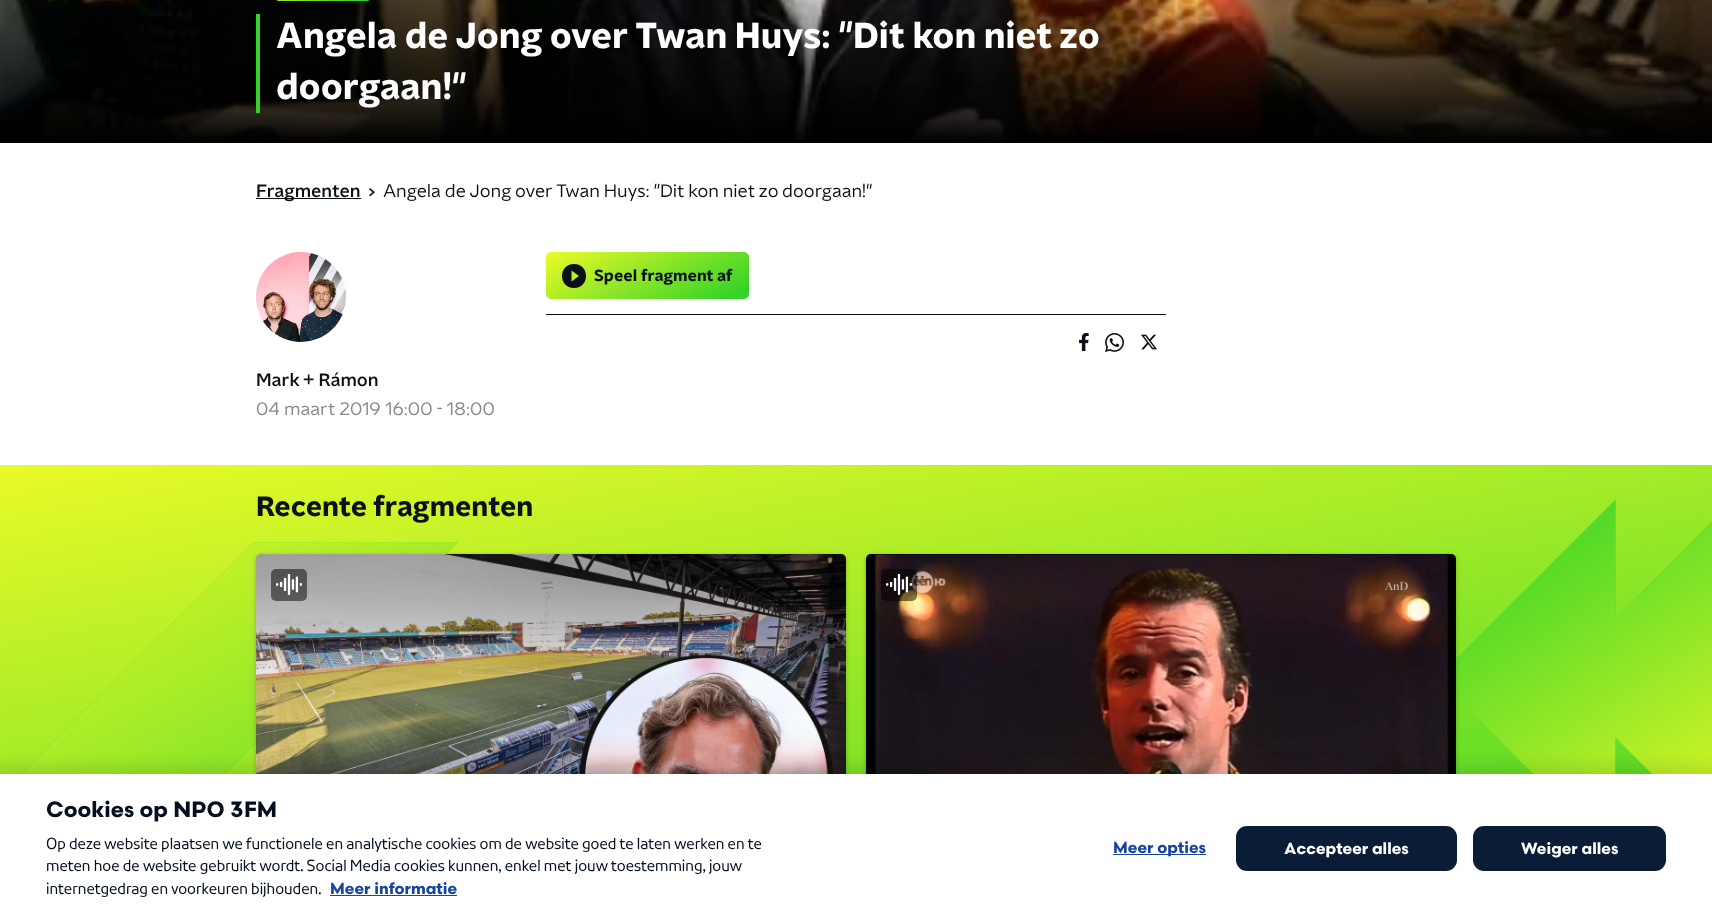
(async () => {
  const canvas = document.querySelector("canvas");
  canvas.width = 1712;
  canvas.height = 924;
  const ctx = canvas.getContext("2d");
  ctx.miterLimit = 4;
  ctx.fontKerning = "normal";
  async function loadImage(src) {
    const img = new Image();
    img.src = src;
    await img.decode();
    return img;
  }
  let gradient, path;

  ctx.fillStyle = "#ffffff";
  ctx.fillRect(0, 0, 1712, 924);
  ctx.drawImage(await loadImage("img/1.png"), 0, 0, 1712, 143);
  gradient = ctx.createLinearGradient(301, -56, 342, 17);
  gradient.addColorStop(0, "#ffff28");
  gradient.addColorStop(0.93, "#35d327");
  ctx.fillStyle = gradient;
  ctx.beginPath();
  ctx.roundRect(276, -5, 94, 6, 5);
  ctx.fill();
  ctx.fillStyle = "#35d327";
  ctx.fillRect(256, 14, 4, 99);
  ctx.fillStyle = "#0b1116";
  ctx.fillRect(256, 198, 105, 1);
  ctx.drawImage(await loadImage("img/2.png"), 369, 188, 6, 9);
  gradient = ctx.createLinearGradient(607, 203, 682, 337);
  gradient.addColorStop(0, "#ffff28");
  gradient.addColorStop(0.93, "#35d327");
  ctx.fillStyle = gradient;
  ctx.beginPath();
  ctx.roundRect(546, 252, 203, 47, 5);
  ctx.fill();
  ctx.fillStyle = "#0b1116";
  path = new Path2D("M574 264C558 264 558 288 574 288C590 288 590 264 574 264ZM571.5 281.5V270.5L579 276Z");
  ctx.fill(path);
  ctx.fillRect(546, 314, 620, 1);
  ctx.drawImage(await loadImage("img/3.png"), 1079, 333, 10, 18);
  ctx.drawImage(await loadImage("img/4.png"), 1105, 333, 19, 19);
  ctx.drawImage(await loadImage("img/5.png"), 1141, 334, 16, 16);
  ctx.drawImage(await loadImage("img/6.png"), 256, 252, 90, 90);
  ctx.drawImage(await loadImage("img/7.png"), 0, 465, 1712, 34);
  ctx.drawImage(await loadImage("img/8.png"), 0, 499, 1712, 275);
  ctx.fillStyle = "rgba(0, 0, 0, 0.25)";
  ctx.filter = "blur(2px)";
  ctx.beginPath();
  ctx.roundRect(256, 555, 590, 332, 5);
  ctx.fill();
  ctx.filter = "none";
  ctx.drawImage(await loadImage("img/9.png"), 256, 554, 590, 220);
  ctx.fillStyle = "rgba(0, 0, 0, 0.5)";
  ctx.beginPath();
  ctx.roundRect(271, 569, 36, 32, 5);
  ctx.fill();
  ctx.drawImage(await loadImage("img/10.png"), 276, 574, 26, 21);
  ctx.fillStyle = "rgba(0, 0, 0, 0.25)";
  ctx.filter = "blur(2px)";
  ctx.beginPath();
  ctx.roundRect(866, 555, 590, 332, 5);
  ctx.fill();
  ctx.filter = "none";
  ctx.drawImage(await loadImage("img/11.png"), 866, 554, 590, 220);
  ctx.fillStyle = "rgba(0, 0, 0, 0.5)";
  ctx.beginPath();
  ctx.roundRect(881, 569, 36, 32, 5);
  ctx.fill();
  ctx.drawImage(await loadImage("img/12.png"), 886, 574, 26, 21);
  ctx.fillStyle = "rgba(0, 0, 0, 0.1)";
  ctx.filter = "blur(7.5px)";
  ctx.beginPath();
  ctx.rect(-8, 766, 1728, 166);
  ctx.fill();
  ctx.filter = "none";
  for (const [x, y, w, h, color] of [
    [0, 774, 1712, 150, "#ffffff"],
    [330, 895, 127, 1, "#1843a1"],
    [1113, 854, 93, 1, "#1843a1"],
  ]) {
    ctx.fillStyle = color;
    ctx.fillRect(x, y, w, h);
  }
  ctx.fillStyle = "#0b1c36";
  ctx.beginPath();
  ctx.roundRect(1236, 826, 221, 45, 11);
  ctx.fill();
  ctx.beginPath();
  ctx.roundRect(1473, 826, 193, 45, 11);
  ctx.fill();
  ctx.font = "bold 36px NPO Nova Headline";
  ctx.fillStyle = "#ffffff";
  ctx.fillText("Angela de Jong over Twan Huys: \"Dit kon niet zo", 276, 48);
  ctx.fillText("doorgaan!\"", 276, 99);
  ctx.font = "500 18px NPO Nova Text";
  ctx.fillStyle = "#0b1116";
  ctx.fillText("Fragmenten", 256, 197);
  ctx.font = "18px NPO Nova Text";
  ctx.fillText("Angela de Jong over Twan Huys: \"Dit kon niet zo doorgaan!\"", 383, 197);
  ctx.font = "bold 16px NPO Nova Headline";
  ctx.fillText("Speel fragment af", 594, 281);
  ctx.font = "500 18px NPO Nova Text";
  ctx.fillText("Mark + Rámon", 256, 386);
  ctx.font = "18px NPO Nova Text";
  ctx.fillStyle = "#888888";
  ctx.fillText("04 maart 2019 16:00 - 18:00", 256, 415);
  ctx.font = "bold 28px NPO Nova Headline";
  ctx.fillStyle = "#0b1116";
  ctx.fillText("Recente fragmenten", 256, 516);
  ctx.font = "bold 22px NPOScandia";
  ctx.fillStyle = "#030e1e";
  ctx.fillText("Cookies op NPO 3FM", 46, 817);
  ctx.font = "16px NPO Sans";
  for (const [text, x, y] of [
    ["Op deze website plaatsen we functionele en analytische cookies om de website goed te laten werken en te", 46, 849],
    ["meten hoe de website gebruikt wordt. Social Media cookies kunnen, enkel met jouw toestemming, jouw", 46, 871],
    ["internetgedrag en voorkeuren bijhouden.", 46, 894],
  ]) {
    ctx.fillText(text, x, y);
  }
  ctx.font = "bold 16px NPOScandia";
  ctx.fillStyle = "#1843a1";
  ctx.fillText("Meer informatie", 330, 894);
  ctx.fillText("Meer opties", 1113, 853);
  ctx.fillStyle = "#ffffff";
  ctx.fillText("Accepteer alles", 1284, 854);
  ctx.fillText("Weiger alles", 1521, 854);
})();
